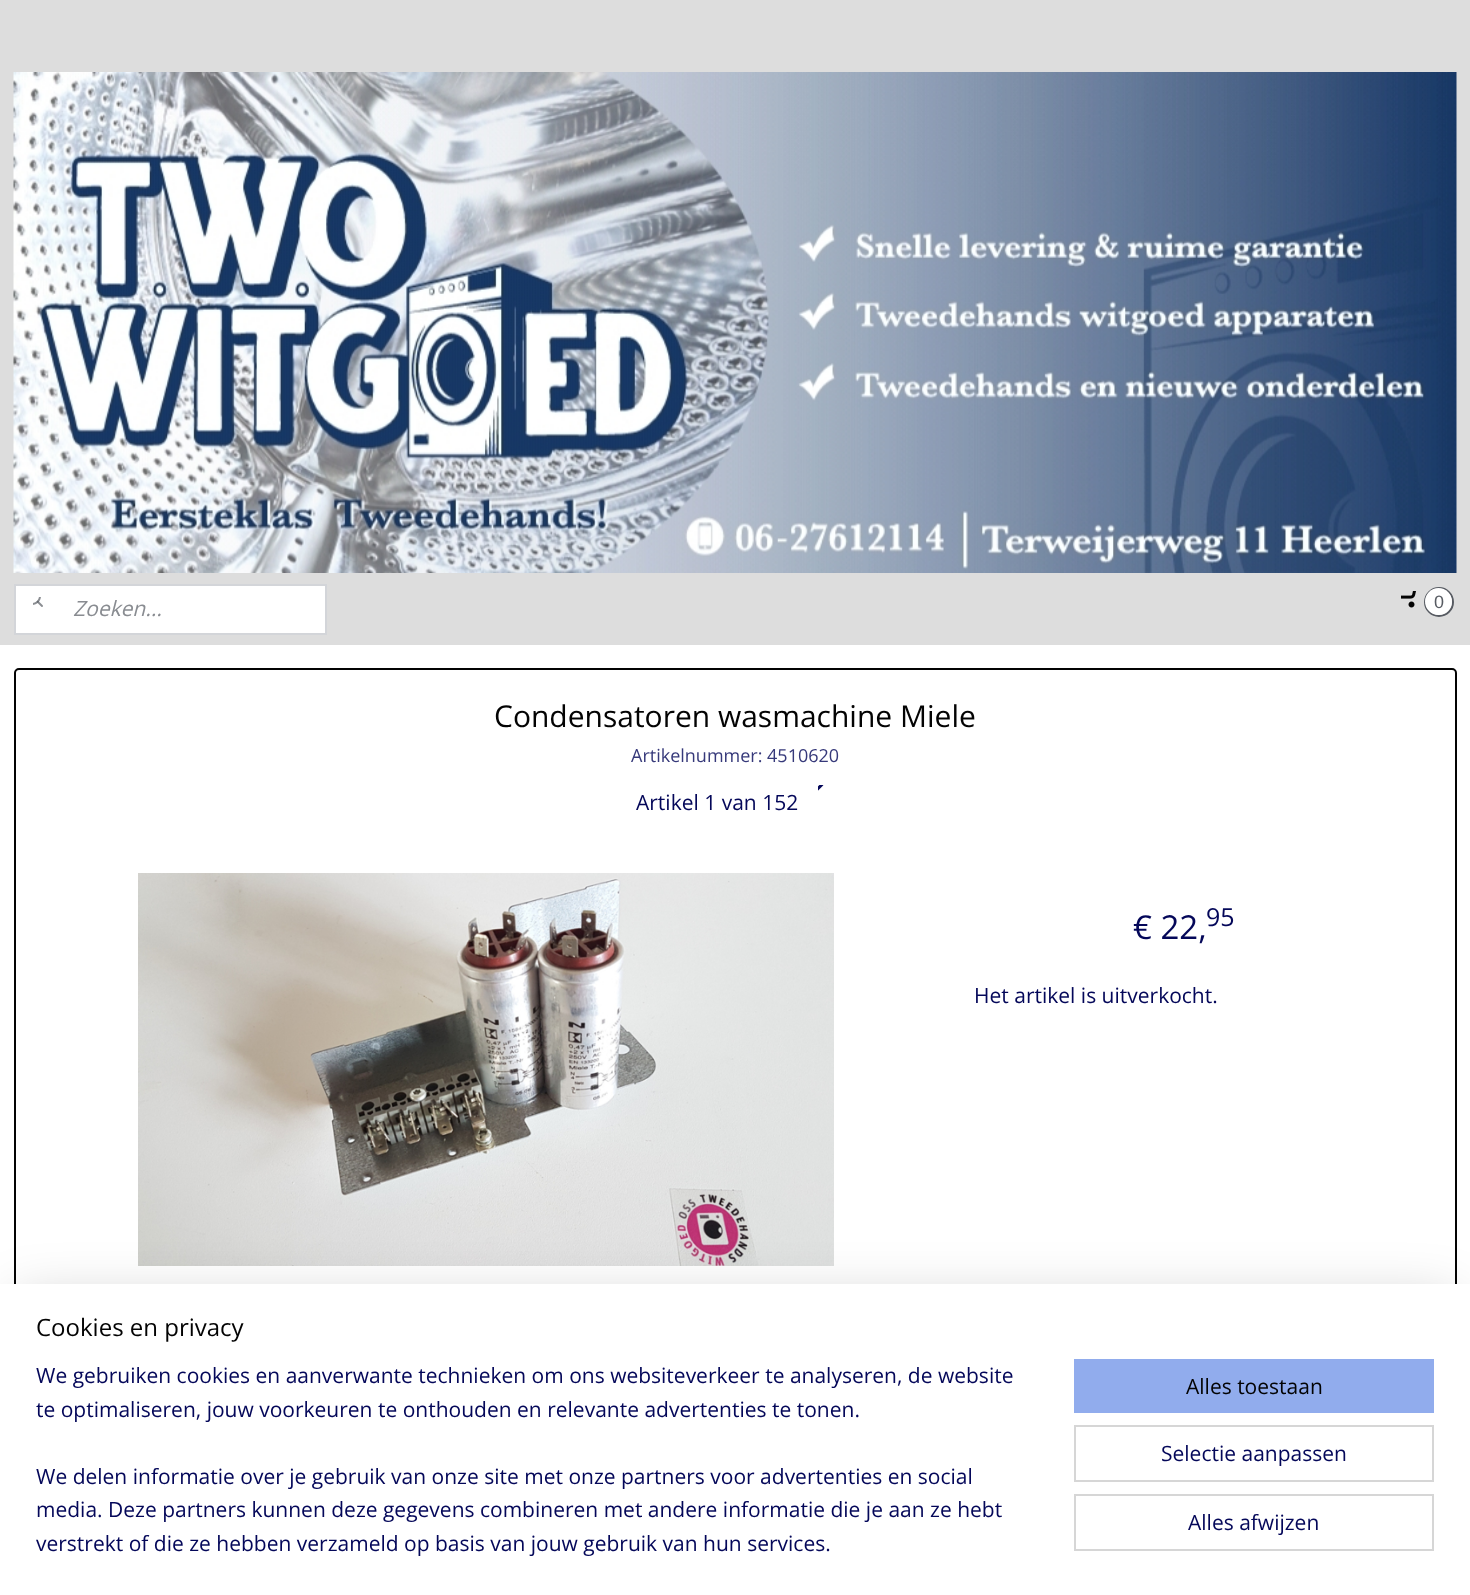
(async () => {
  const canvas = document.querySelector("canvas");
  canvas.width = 1470;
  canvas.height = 1595;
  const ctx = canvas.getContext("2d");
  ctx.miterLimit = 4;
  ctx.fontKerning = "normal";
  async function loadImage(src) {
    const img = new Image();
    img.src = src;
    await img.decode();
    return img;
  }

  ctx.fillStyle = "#dddddd";
  ctx.fillRect(0, 0, 1470, 1595);
  ctx.drawImage(await loadImage("img/1.png"), 13, 72, 1444, 501);
  ctx.fillStyle = "#ffffff";
  ctx.beginPath();
  ctx.rect(15, 585, 311, 49);
  ctx.fill();
  ctx.strokeStyle = "#d3d5d9";
  ctx.lineWidth = 2;
  ctx.stroke();
  ctx.drawImage(await loadImage("img/2.png"), 33, 597, 10, 10);
  ctx.drawImage(await loadImage("img/3.png"), 1401, 591, 15, 17);
  ctx.beginPath();
  ctx.arc(1439, 602, 14, 0, Math.PI * 2);
  ctx.strokeStyle = "#575b62";
  ctx.stroke();
  ctx.beginPath();
  ctx.arc(1438.5, 601.5, 13.5, 0, Math.PI * 2);
  ctx.fill();
  ctx.fillRect(0, 645, 1470, 639);
  ctx.beginPath();
  ctx.roundRect(15, 669, 1441, 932, 4);
  ctx.strokeStyle = "#030303";
  ctx.stroke();
  ctx.drawImage(await loadImage("img/4.png"), 818, 785, 6, 6);
  ctx.drawImage(await loadImage("img/5.png"), 138, 873, 696, 393);
  ctx.fillStyle = "rgba(0, 0, 0, 0.2)";
  ctx.filter = "blur(27px)";
  ctx.beginPath();
  ctx.rect(15, 1299, 1440, 282);
  ctx.fill();
  ctx.filter = "none";
  ctx.fillStyle = "#ffffff";
  ctx.fillRect(0, 1284, 1470, 311);
  ctx.fillStyle = "#91aced";
  ctx.fillRect(1074, 1359, 360, 54);
  ctx.strokeStyle = "#d6d6d6";
  ctx.strokeRect(1075, 1426, 358, 55);
  ctx.strokeRect(1075, 1495, 358, 55);
  ctx.font = "italic 21px Open Sans";
  ctx.fillStyle = "#898c91";
  ctx.fillText("Zoeken...", 73, 616);
  ctx.font = "18px Liberation Sans";
  ctx.fillStyle = "#575b62";
  ctx.fillText("0", 1434, 608);
  ctx.font = "30px Open Sans";
  ctx.fillStyle = "#030303";
  ctx.fillText("Condensatoren wasmachine Miele", 494, 727);
  ctx.font = "18px Open Sans";
  ctx.fillStyle = "#36397a";
  ctx.fillText("Artikelnummer: 4510620", 631, 762);
  ctx.font = "21px Open Sans";
  ctx.fillStyle = "#040759";
  ctx.fillText("Artikel 1 van 152", 636, 810);
  ctx.font = "33px Open Sans";
  ctx.fillText("€ 22,", 1133, 939);
  ctx.font = "25px Open Sans";
  ctx.fillText("95", 1206, 926);
  ctx.font = "21px Open Sans";
  ctx.fillText("Het artikel is uitverkocht.", 974, 1003);
  ctx.font = "24px Open Sans";
  ctx.fillStyle = "#030303";
  ctx.fillText("Cookies en privacy", 36, 1336);
  ctx.font = "21px Open Sans";
  ctx.fillStyle = "#040759";
  for (const [text, x, y] of [
    ["We gebruiken cookies en aanverwante technieken om ons websiteverkeer te analyseren, de website", 36, 1383],
    ["te optimaliseren, jouw voorkeuren te onthouden en relevante advertenties te tonen.", 36, 1417],
    ["We delen informatie over je gebruik van onze site met onze partners voor advertenties en social", 36, 1484],
    ["media. Deze partners kunnen deze gegevens combineren met andere informatie die je aan ze hebt", 36, 1517],
    ["verstrekt of die ze hebben verzameld op basis van jouw gebruik van hun services.", 36, 1551],
  ]) {
    ctx.fillText(text, x, y);
  }
  ctx.fillStyle = "#030303";
  ctx.fillText("Alles toestaan", 1186, 1394);
  ctx.fillStyle = "#040759";
  ctx.fillText("Selectie aanpassen", 1161, 1461);
  ctx.fillText("Alles afwijzen", 1188, 1530);
})();
